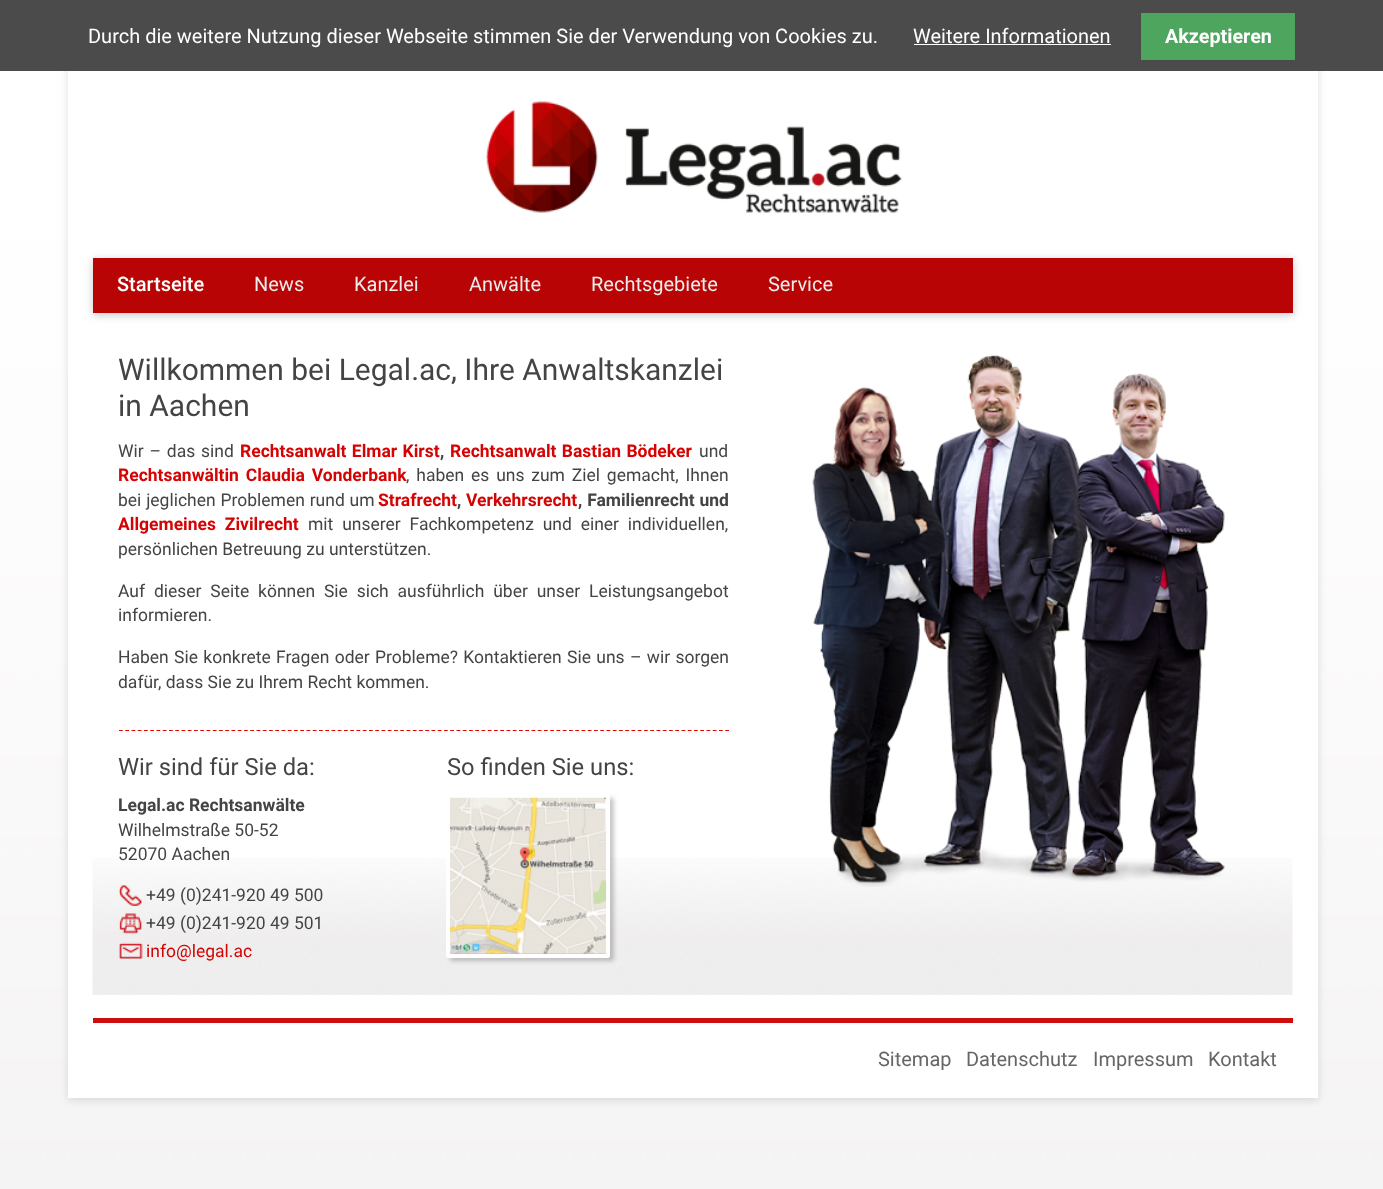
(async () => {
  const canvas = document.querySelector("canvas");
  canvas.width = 1383;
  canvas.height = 1189;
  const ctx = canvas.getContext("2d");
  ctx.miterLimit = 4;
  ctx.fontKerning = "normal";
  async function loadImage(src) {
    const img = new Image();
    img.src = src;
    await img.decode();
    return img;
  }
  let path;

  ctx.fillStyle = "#ffffff";
  ctx.fillRect(0, 0, 1383, 1189);
  ctx.drawImage(await loadImage("img/1.png"), 0, 71, 1383, 1118);
  ctx.fillStyle = "rgba(142, 142, 142, 0.3)";
  ctx.filter = "blur(4px)";
  ctx.beginPath();
  ctx.rect(68, 63, 1250, 1037);
  ctx.fill();
  ctx.filter = "none";
  for (const [x, y, w, h, color] of [
    [0, 0, 1383, 71, "#4b4b4b"],
    [914, 44, 197, 1, "#ffffff"],
    [1141, 13, 154, 47, "#4ea55e"],
    [68, 71, 1250, 1027, "#ffffff"],
  ]) {
    ctx.fillStyle = color;
    ctx.fillRect(x, y, w, h);
  }
  ctx.drawImage(await loadImage("img/2.png"), 486, 101, 416, 112);
  ctx.fillStyle = "rgba(68, 68, 68, 0.3)";
  ctx.filter = "blur(4px)";
  ctx.beginPath();
  ctx.rect(93, 260, 1200, 55);
  ctx.fill();
  ctx.filter = "none";
  ctx.fillStyle = "#b80404";
  ctx.fillRect(93, 258, 1200, 55);
  ctx.drawImage(await loadImage("img/3.png"), 92, 858, 1201, 137);
  path = new Path2D("M119 730.5H729");
  ctx.strokeStyle = "#e00700";
  ctx.lineWidth = 1.2;
  ctx.setLineDash([3.75, 2.5]);
  ctx.stroke(path);
  ctx.drawImage(await loadImage("img/4.png"), 119, 885, 23, 21);
  ctx.drawImage(await loadImage("img/5.png"), 119, 913, 23, 21);
  ctx.drawImage(await loadImage("img/6.png"), 119, 942, 24, 17);
  ctx.fillStyle = "rgba(68, 68, 68, 0.3)";
  ctx.filter = "blur(2px)";
  ctx.beginPath();
  ctx.roundRect(450, 798, 164, 163, 2.5);
  ctx.fill();
  ctx.filter = "none";
  ctx.beginPath();
  ctx.roundRect(448, 796, 160, 160, 0.5);
  ctx.strokeStyle = "#ffffff";
  ctx.lineWidth = 4;
  ctx.setLineDash([]);
  ctx.stroke();
  ctx.drawImage(await loadImage("img/7.png"), 450, 797, 157, 157);
  ctx.drawImage(await loadImage("img/8.png"), 812, 354, 413, 533);
  ctx.fillStyle = "#cc0e0e";
  ctx.fillRect(93, 1018, 1200, 5);
  ctx.font = "20px Roboto";
  ctx.fillStyle = "#ffffff";
  ctx.fillText("Durch die weitere Nutzung dieser Webseite stimmen Sie der Verwendung von Cookies zu.", 88, 43);
  ctx.fillText("Weitere Informationen", 913, 43);
  ctx.font = "bold 19.75px Roboto";
  ctx.fillText("Akzeptieren", 1165, 43);
  ctx.font = "500 20px Roboto";
  ctx.fillText("Startseite", 117, 291);
  ctx.font = "20px Roboto";
  ctx.fillStyle = "#ececec";
  for (const [text, x, y] of [
    ["News", 254, 291],
    ["Kanzlei", 354, 291],
    ["Anwälte", 469, 291],
    ["Rechtsgebiete", 591, 291],
    ["Service", 768, 291],
  ]) {
    ctx.fillText(text, x, y);
  }
  ctx.font = "30px Roboto";
  ctx.fillStyle = "#444444";
  ctx.fillText("Willkommen bei Legal.ac, Ihre Anwaltskanzlei", 118, 380);
  ctx.fillText("in Aachen", 118, 416);
  ctx.wordSpacing = "1.5px";
  ctx.font = "17.5px Roboto";
  ctx.fillText("Wir – das sind", 118, 457);
  ctx.wordSpacing = "1px";
  ctx.font = "bold 17.5px Roboto";
  ctx.fillStyle = "#d40404";
  ctx.fillText("Rechtsanwalt Elmar Kirst", 240, 457);
  ctx.wordSpacing = "0px";
  ctx.fillStyle = "#444444";
  ctx.fillText(",", 440, 457);
  ctx.wordSpacing = "1px";
  ctx.fillStyle = "#d40404";
  ctx.fillText("Rechtsanwalt Bastian Bödeker", 450, 457);
  ctx.wordSpacing = "0px";
  ctx.font = "17.5px Roboto";
  ctx.fillStyle = "#444444";
  ctx.fillText("und", 699, 457);
  ctx.wordSpacing = "2.5px";
  ctx.font = "bold 17.5px Roboto";
  ctx.fillStyle = "#d40404";
  ctx.fillText("Rechtsanwältin Claudia Vonderbank", 118, 481);
  ctx.font = "17.5px Roboto";
  ctx.fillStyle = "#444444";
  ctx.fillText(", haben es uns zum Ziel gemacht, Ihnen", 406, 481);
  ctx.wordSpacing = "0.5px";
  ctx.fillText("bei jeglichen Problemen rund um", 118, 506);
  ctx.wordSpacing = "0px";
  ctx.font = "bold 17.5px Roboto";
  ctx.fillStyle = "#d40404";
  ctx.fillText("Strafrecht", 378, 506);
  ctx.fillStyle = "#444444";
  ctx.fillText(",", 457, 506);
  ctx.fillStyle = "#d40404";
  ctx.fillText("Verkehrsrecht", 466, 506);
  ctx.wordSpacing = "0.5px";
  ctx.fillStyle = "#444444";
  ctx.fillText(", Familienrecht und", 578, 506);
  ctx.wordSpacing = "4.5px";
  ctx.fillStyle = "#d40404";
  ctx.fillText("Allgemeines Zivilrecht", 118, 530);
  ctx.font = "17.5px Roboto";
  ctx.fillStyle = "#444444";
  ctx.fillText("mit unserer Fachkompetenz und einer individuellen,", 308, 530);
  ctx.wordSpacing = "0px";
  ctx.fillText("persönlichen Betreuung zu unterstützen.", 118, 555);
  ctx.wordSpacing = "4.5px";
  ctx.fillText("Auf dieser Seite können Sie sich ausführlich über unser Leistungsangebot", 118, 597);
  ctx.wordSpacing = "0px";
  ctx.fillText("informieren.", 118, 621);
  ctx.wordSpacing = "1px";
  ctx.fillText("Haben Sie konkrete Fragen oder Probleme? Kontaktieren Sie uns – wir sorgen", 118, 663);
  ctx.wordSpacing = "0px";
  ctx.fillText("dafür, dass Sie zu Ihrem Recht kommen.", 118, 688);
  ctx.font = "23.75px Roboto";
  ctx.fillText("Wir sind für Sie da:", 118, 775);
  ctx.font = "bold 17.5px Roboto";
  ctx.fillText("Legal.ac Rechtsanwälte", 118, 811);
  ctx.font = "17.5px Roboto";
  for (const [text, x, y] of [
    ["Wilhelmstraße 50-52", 118, 836],
    ["52070 Aachen", 118, 860],
    ["+49 (0)241-920 49 500", 146, 901],
    ["+49 (0)241-920 49 501", 146, 929],
  ]) {
    ctx.fillText(text, x, y);
  }
  ctx.fillStyle = "#d40404";
  ctx.fillText("info@legal.ac", 146, 957);
  ctx.font = "23.75px Roboto";
  ctx.fillStyle = "#444444";
  ctx.fillText("So finden Sie uns:", 447, 775);
  ctx.font = "20px Roboto";
  ctx.fillStyle = "#666666";
  for (const [text, x, y] of [
    ["Sitemap", 878, 1066],
    ["Datenschutz", 966, 1066],
    ["Impressum", 1093, 1066],
    ["Kontakt", 1208, 1066],
  ]) {
    ctx.fillText(text, x, y);
  }
})();
